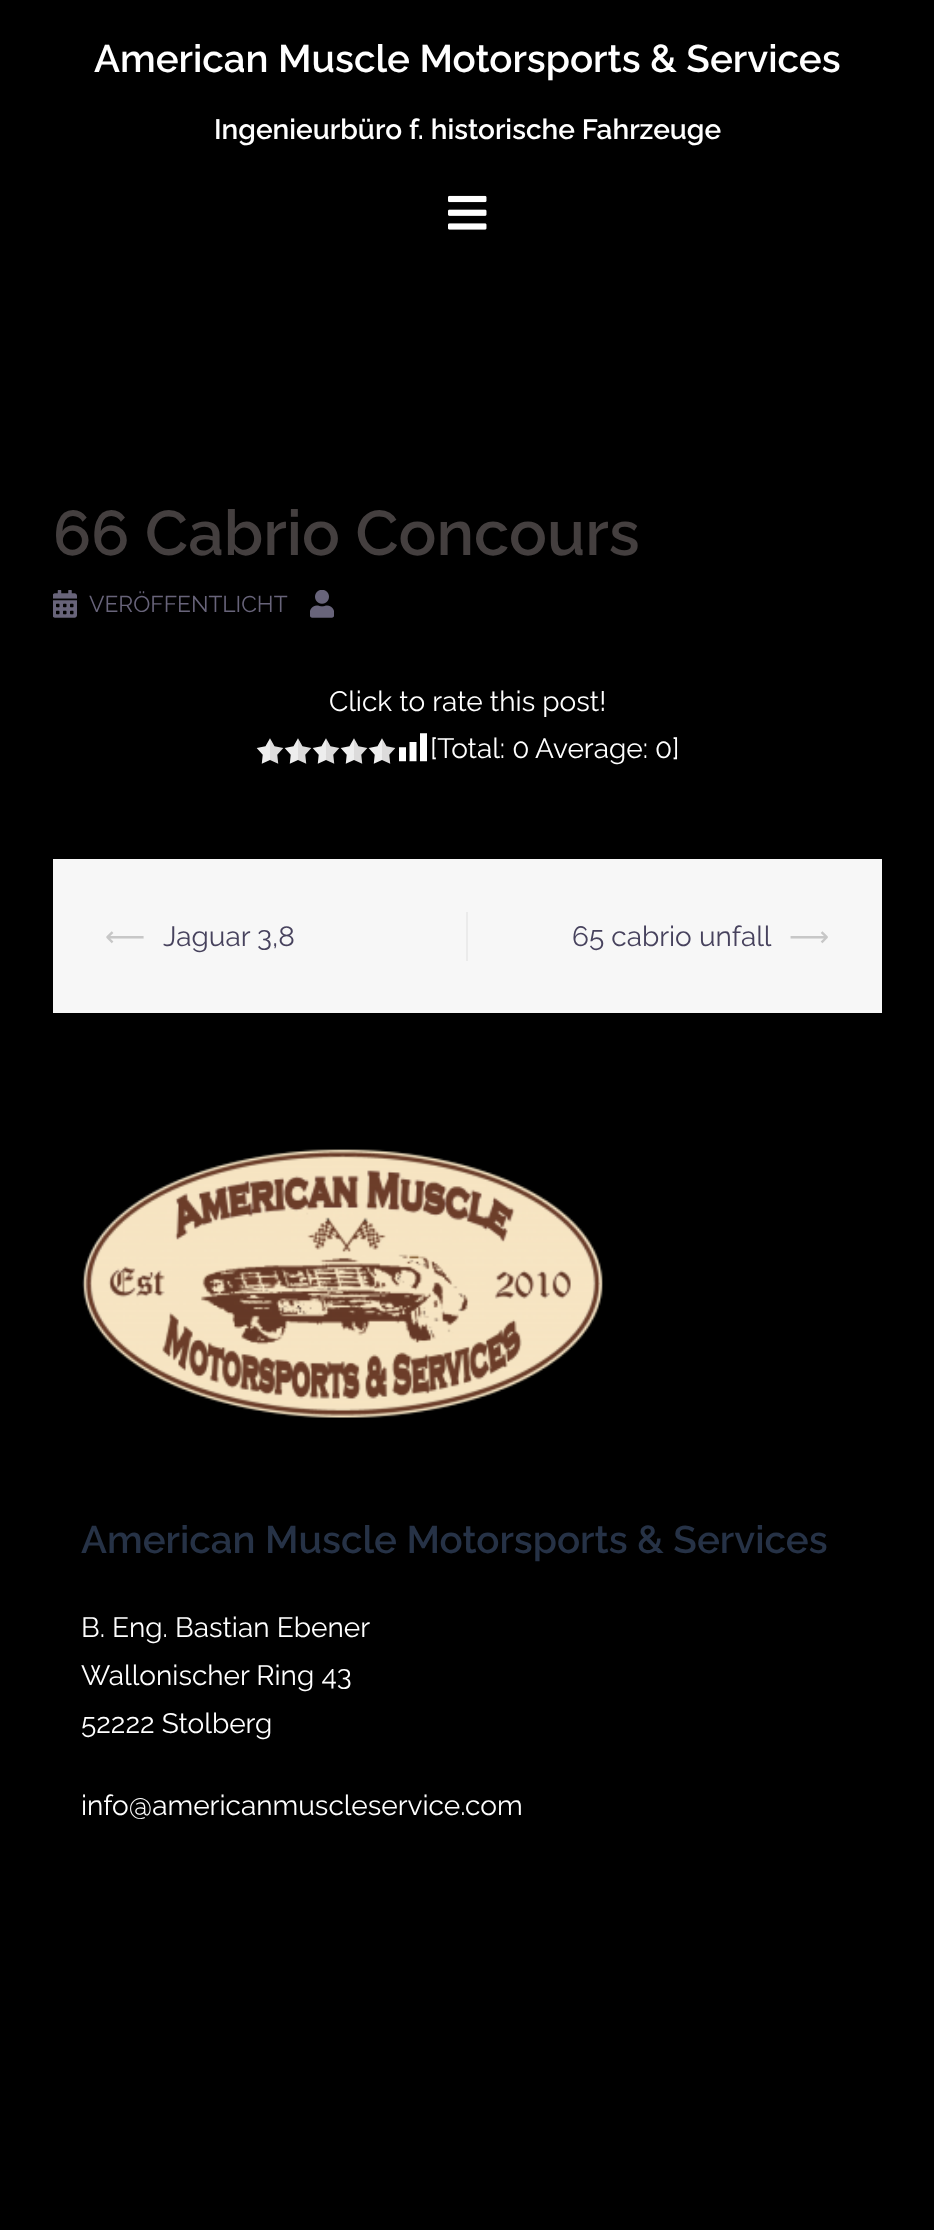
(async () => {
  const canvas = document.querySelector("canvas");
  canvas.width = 934;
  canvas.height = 2230;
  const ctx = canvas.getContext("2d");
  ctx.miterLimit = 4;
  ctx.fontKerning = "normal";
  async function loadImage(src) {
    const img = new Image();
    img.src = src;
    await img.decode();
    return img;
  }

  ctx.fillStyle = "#000000";
  ctx.fillRect(0, 0, 934, 2230);
  ctx.drawImage(await loadImage("img/1.png"), 448, 195, 39, 35);
  ctx.drawImage(await loadImage("img/2.png"), 53, 590, 24, 28);
  ctx.drawImage(await loadImage("img/3.png"), 310, 590, 24, 28);
  ctx.drawImage(await loadImage("img/4.png"), 255, 738, 141, 26);
  ctx.drawImage(await loadImage("img/5.png"), 399, 733, 28, 29);
  ctx.fillStyle = "#f7f7f7";
  ctx.fillRect(53, 859, 829, 154);
  ctx.fillStyle = "#ebebeb";
  ctx.fillRect(466, 912, 2, 49);
  ctx.drawImage(await loadImage("img/6.png"), 82, 1149, 521, 269);
  ctx.font = "600 38.5px Raleway";
  ctx.fillStyle = "#ffffff";
  ctx.fillText("American Muscle Motorsports & Services", 94, 72);
  ctx.font = "600 28px Raleway";
  ctx.fillText("Ingenieurbüro f. historische Fahrzeuge", 214, 139);
  ctx.font = "600 63px Raleway";
  ctx.fillStyle = "#443f3f";
  ctx.fillText("66 Cabrio Concours", 53, 555);
  ctx.font = "22.75px Raleway";
  ctx.fillStyle = "#68647a";
  ctx.fillText("VERÖFFENTLICHT", 89, 612);
  ctx.font = "28px Raleway";
  ctx.fillStyle = "#ffffff";
  for (const [text, x, y] of [
    ["Click to rate this post!", 329, 711],
    ["[Total: 0", 430, 758],
    ["Average: 0]", 535, 758],
  ]) {
    ctx.fillText(text, x, y);
  }
  ctx.font = "28px DejaVu Sans";
  ctx.fillStyle = "#c7c7c7";
  ctx.fillText("⟵", 105, 946);
  ctx.font = "28px Raleway";
  ctx.fillStyle = "#47425d";
  ctx.fillText("Jaguar 3,8", 163, 946);
  ctx.fillText("65 cabrio unfall", 572, 946);
  ctx.font = "28px DejaVu Sans";
  ctx.fillStyle = "#c7c7c7";
  ctx.fillText("⟶", 789, 946);
  ctx.font = "600 38.5px Raleway";
  ctx.fillStyle = "#263246";
  ctx.fillText("American Muscle Motorsports & Services", 81, 1553);
  ctx.font = "28px Raleway";
  ctx.fillStyle = "#ffffff";
  for (const [text, x, y] of [
    ["B. Eng. Bastian Ebener", 81, 1637],
    ["Wallonischer Ring 43", 81, 1685],
    ["52222 Stolberg", 81, 1733],
    ["info@americanmuscleservice.com", 81, 1815],
  ]) {
    ctx.fillText(text, x, y);
  }
})();
